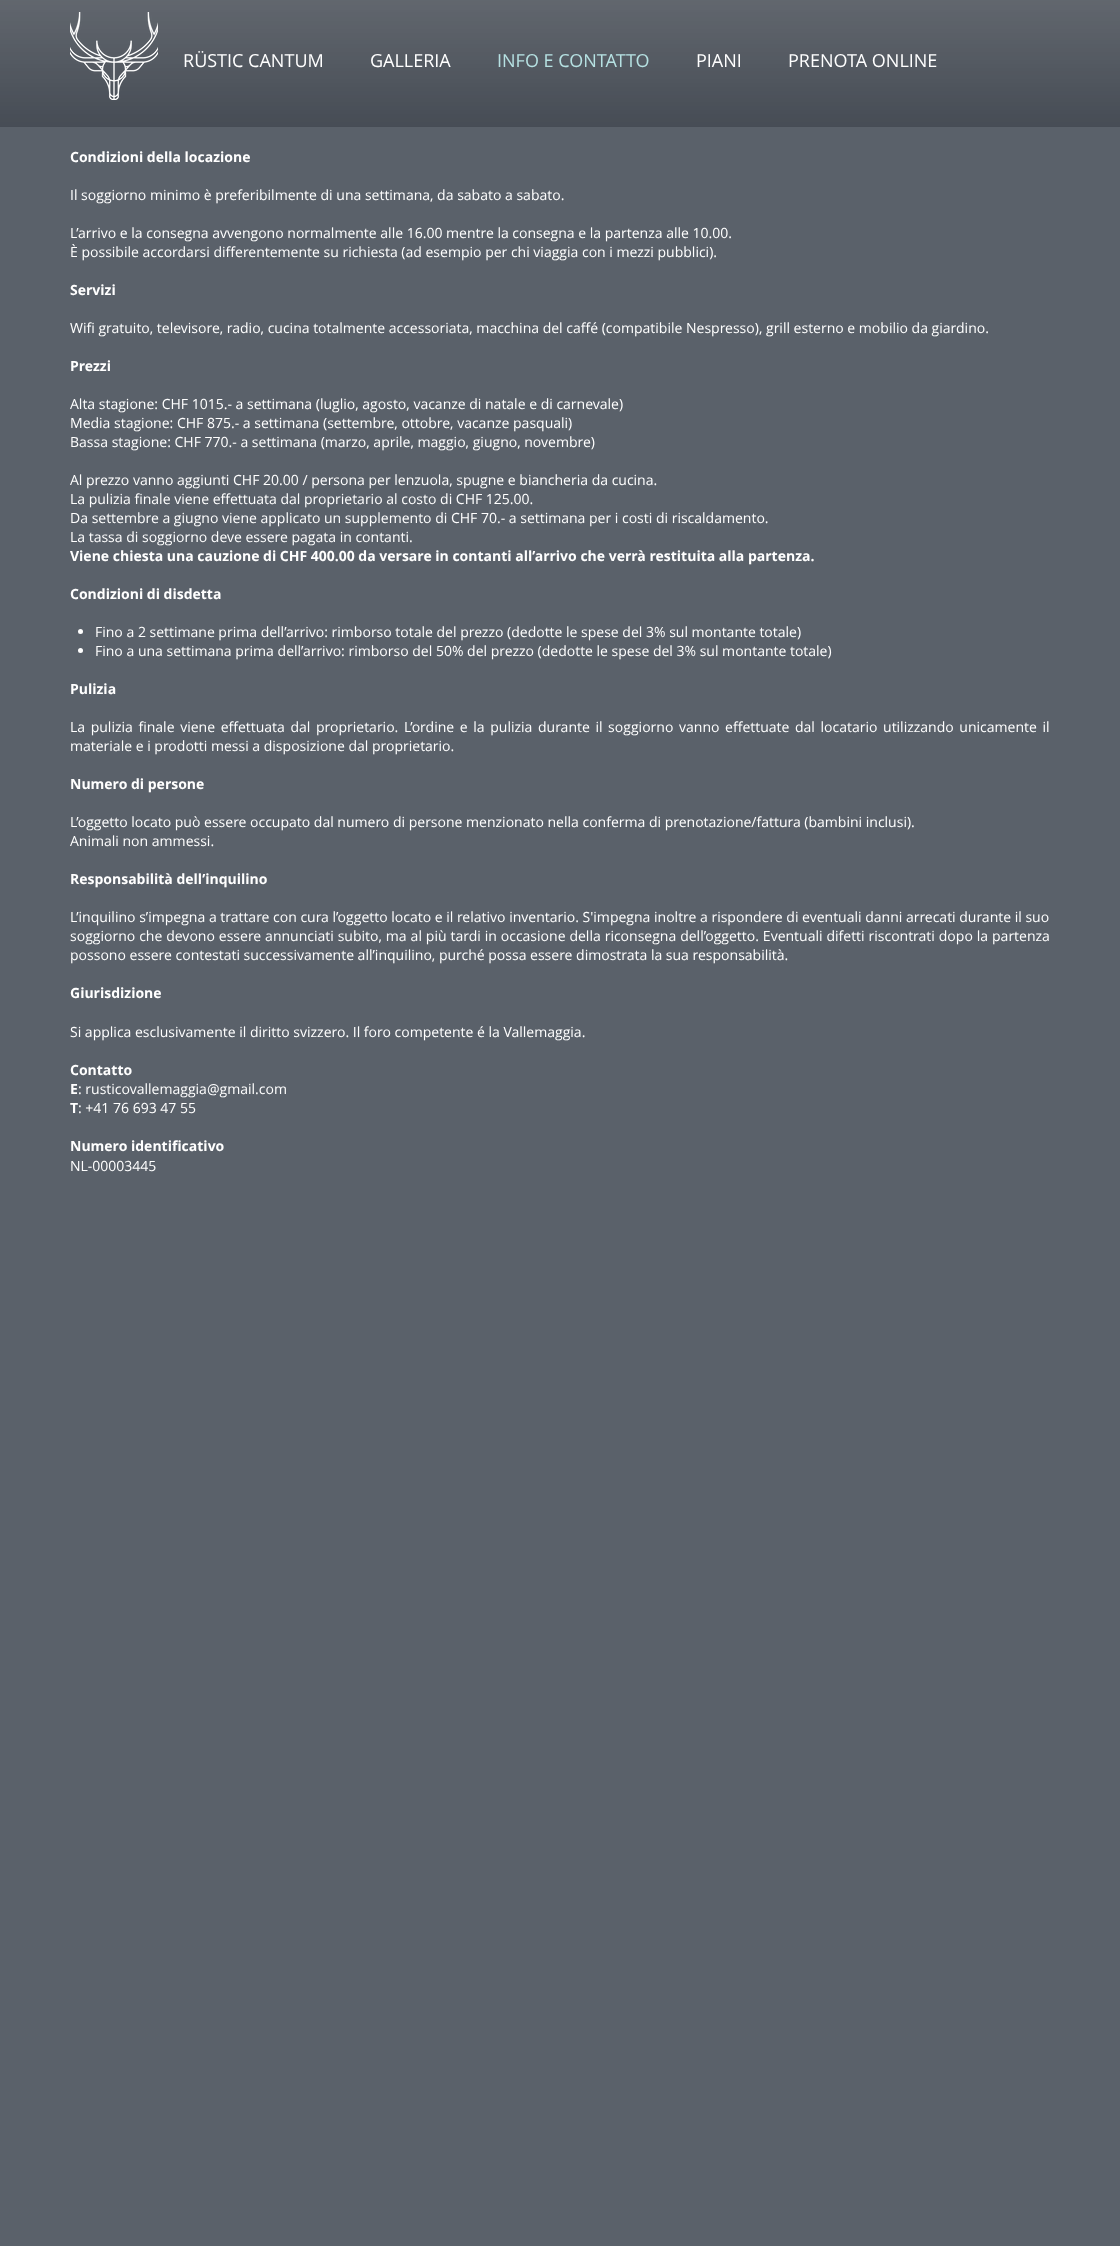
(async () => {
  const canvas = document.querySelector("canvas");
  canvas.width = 1120;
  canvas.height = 2246;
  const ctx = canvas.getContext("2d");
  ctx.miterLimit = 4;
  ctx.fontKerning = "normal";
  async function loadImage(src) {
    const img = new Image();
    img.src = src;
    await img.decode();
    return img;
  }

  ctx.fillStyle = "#5a616a";
  ctx.fillRect(0, 0, 1120, 2246);
  ctx.fillStyle = "#2b323c";
  ctx.fillRect(0, 0, 1120, 127);
  ctx.drawImage(await loadImage("img/1.png"), 0, 0, 1120, 127);
  ctx.drawImage(await loadImage("img/2.png"), 70, 12, 88, 88);
  ctx.fillStyle = "#ffffff";
  ctx.beginPath();
  ctx.arc(80.5, 631.5, 2.5, 0, Math.PI * 2);
  ctx.fill();
  ctx.beginPath();
  ctx.arc(80.5, 650.5, 2.5, 0, Math.PI * 2);
  ctx.fill();
  ctx.font = "18px Open Sans";
  ctx.fillText("RÜSTIC CANTUM", 183, 67);
  ctx.fillText("GALLERIA", 370, 67);
  ctx.fillStyle = "#b6e1e2";
  ctx.fillText("INFO E CONTATTO", 497, 67);
  ctx.fillStyle = "#ffffff";
  ctx.fillText("PIANI", 696, 67);
  ctx.fillText("PRENOTA ONLINE", 788, 67);
  ctx.font = "bold 14px Open Sans";
  ctx.fillText("Condizioni della locazione", 70, 162);
  ctx.font = "14px Open Sans";
  for (const [text, x, y] of [
    ["Il soggiorno minimo è preferibilmente di una settimana, da sabato a sabato.", 70, 200],
    ["L’arrivo e la consegna avvengono normalmente alle 16.00 mentre la consegna e la partenza alle 10.00.", 70, 238],
    ["È possibile accordarsi differentemente su richiesta (ad esempio per chi viaggia con i mezzi pubblici).", 70, 257],
  ]) {
    ctx.fillText(text, x, y);
  }
  ctx.font = "bold 14px Open Sans";
  ctx.fillText("Servizi", 70, 295);
  ctx.font = "14px Open Sans";
  ctx.fillText("Wifi gratuito, televisore, radio, cucina totalmente accessoriata, macchina del caffé (compatibile Nespresso), grill esterno e mobilio da giardino.", 70, 333);
  ctx.font = "bold 14px Open Sans";
  ctx.fillText("Prezzi", 70, 371);
  ctx.font = "14px Open Sans";
  for (const [text, x, y] of [
    ["Alta stagione: CHF 1015.- a settimana (luglio, agosto, vacanze di natale e di carnevale)", 70, 409],
    ["Media stagione: CHF 875.- a settimana (settembre, ottobre, vacanze pasquali)", 70, 428],
    ["Bassa stagione: CHF 770.- a settimana (marzo, aprile, maggio, giugno, novembre)", 70, 447],
    ["Al prezzo vanno aggiunti CHF 20.00 / persona per lenzuola, spugne e biancheria da cucina.", 70, 485],
    ["La pulizia finale viene effettuata dal proprietario al costo di CHF 125.00.", 70, 504],
    ["Da settembre a giugno viene applicato un supplemento di CHF 70.- a settimana per i costi di riscaldamento.", 70, 523],
    ["La tassa di soggiorno deve essere pagata in contanti.", 70, 542],
  ]) {
    ctx.fillText(text, x, y);
  }
  ctx.font = "bold 14px Open Sans";
  ctx.fillText("Viene chiesta una cauzione di CHF 400.00 da versare in contanti all’arrivo che verrà restituita alla partenza.", 70, 561);
  ctx.fillText("Condizioni di disdetta", 70, 599);
  ctx.font = "14px Open Sans";
  ctx.fillText("Fino a 2 settimane prima dell’arrivo: rimborso totale del prezzo (dedotte le spese del 3% sul montante totale)", 95, 637);
  ctx.fillText("Fino a una settimana prima dell’arrivo: rimborso del 50% del prezzo (dedotte le spese del 3% sul montante totale)", 95, 656);
  ctx.font = "bold 14px Open Sans";
  ctx.fillText("Pulizia", 70, 694);
  ctx.wordSpacing = "2px";
  ctx.font = "14px Open Sans";
  ctx.fillText("La pulizia finale viene effettuata dal proprietario. L’ordine e la pulizia durante il soggiorno vanno effettuate dal locatario utilizzando unicamente il", 70, 732);
  ctx.wordSpacing = "0px";
  ctx.fillText("materiale e i prodotti messi a disposizione dal proprietario.", 70, 751);
  ctx.font = "bold 14px Open Sans";
  ctx.fillText("Numero di persone", 70, 789);
  ctx.font = "14px Open Sans";
  ctx.fillText("L’oggetto locato può essere occupato dal numero di persone menzionato nella conferma di prenotazione/fattura (bambini inclusi).", 70, 827);
  ctx.fillText("Animali non ammessi.", 70, 846);
  ctx.font = "bold 14px Open Sans";
  ctx.fillText("Responsabilità dell’inquilino", 70, 884);
  ctx.font = "14px Open Sans";
  ctx.fillText("L’inquilino s’impegna a trattare con cura l’oggetto locato e il relativo inventario. S'impegna inoltre a rispondere di eventuali danni arrecati durante il suo", 70, 922);
  ctx.wordSpacing = "0.3px";
  ctx.fillText("soggiorno che devono essere annunciati subito, ma al più tardi in occasione della riconsegna dell’oggetto. Eventuali difetti riscontrati dopo la partenza", 70, 941);
  ctx.wordSpacing = "0px";
  ctx.fillText("possono essere contestati successivamente all’inquilino, purché possa essere dimostrata la sua responsabilità.", 70, 960);
  ctx.font = "bold 14px Open Sans";
  ctx.fillText("Giurisdizione", 70, 998);
  ctx.font = "14px Open Sans";
  ctx.fillText("Si applica esclusivamente il diritto svizzero. Il foro competente é la Vallemaggia.", 70, 1037);
  ctx.font = "bold 14px Open Sans";
  ctx.fillText("Contatto", 70, 1075);
  ctx.fillText("E", 70, 1094);
  ctx.font = "14px Open Sans";
  ctx.fillText(": rusticovallemaggia@gmail.com", 78, 1094);
  ctx.font = "bold 14px Open Sans";
  ctx.fillText("T", 70, 1113);
  ctx.font = "14px Open Sans";
  ctx.fillText(": +41 76 693 47 55", 78, 1113);
  ctx.font = "bold 14px Open Sans";
  ctx.fillText("Numero identificativo", 70, 1151);
  ctx.font = "14px Open Sans";
  ctx.fillText("NL-00003445", 70, 1171);
})();
